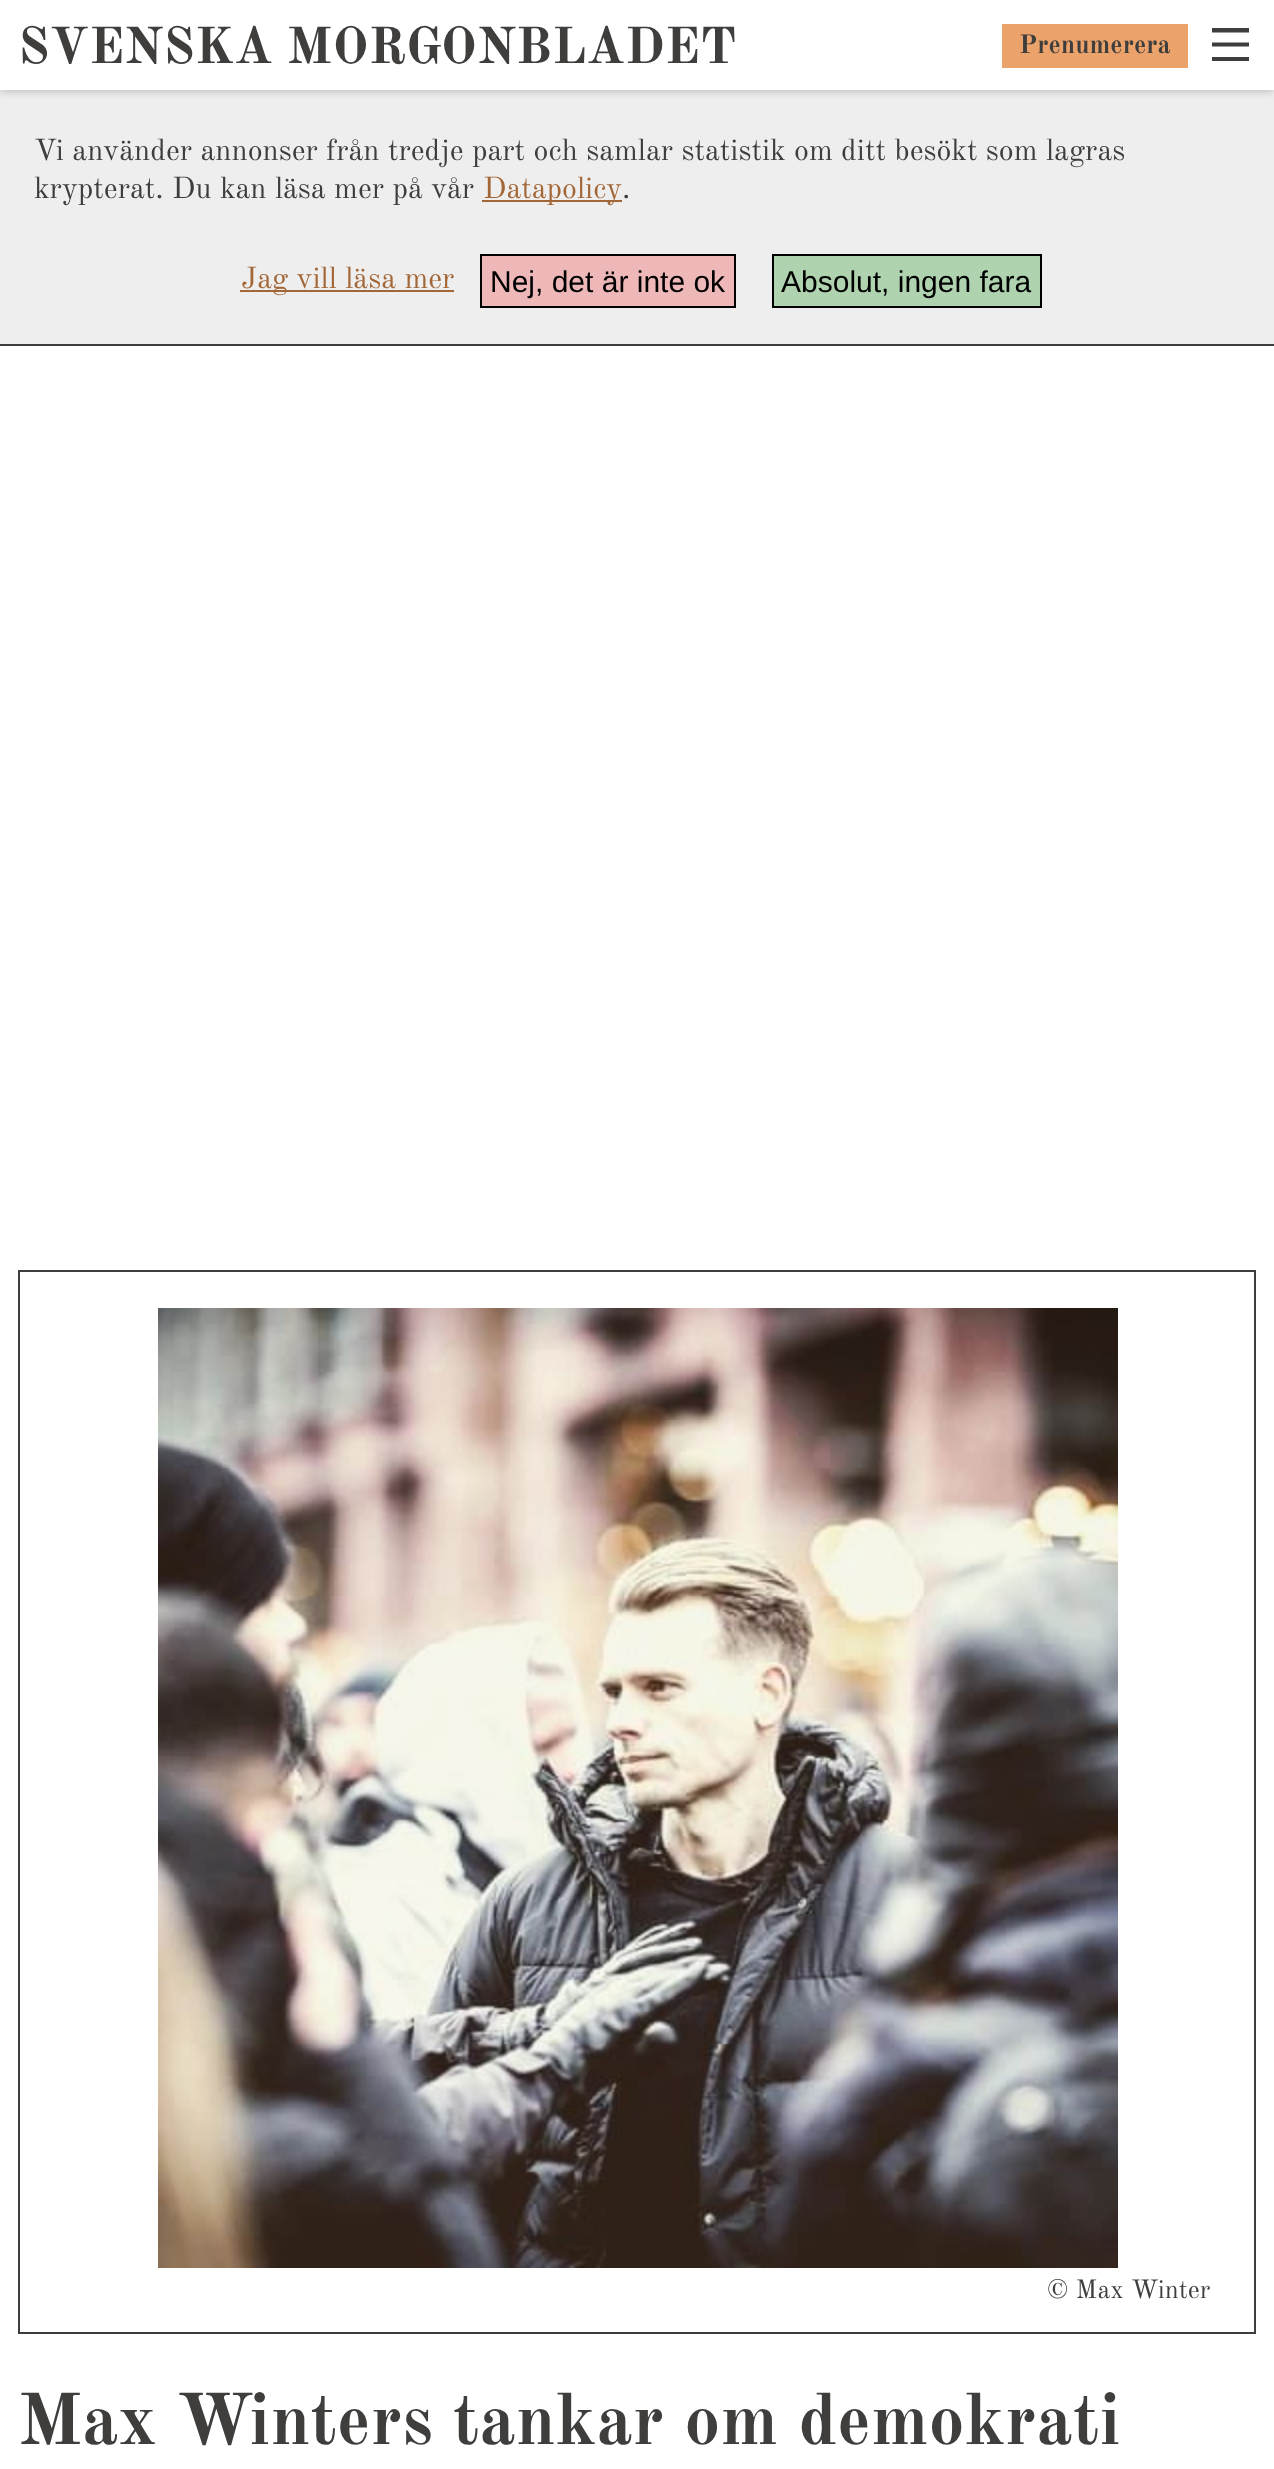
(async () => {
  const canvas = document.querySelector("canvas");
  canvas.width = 1274;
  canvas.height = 2469;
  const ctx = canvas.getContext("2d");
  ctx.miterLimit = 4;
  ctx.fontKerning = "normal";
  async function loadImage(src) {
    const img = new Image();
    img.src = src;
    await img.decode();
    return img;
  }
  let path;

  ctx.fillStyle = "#ffffff";
  ctx.fillRect(0, 0, 1274, 2469);
  ctx.fillStyle = "#eeeeee";
  ctx.fillRect(0, 90, 1274, 254);
  ctx.fillStyle = "rgba(0, 0, 0, 0.27)";
  ctx.filter = "blur(5px)";
  ctx.beginPath();
  ctx.rect(0, 0, 1274, 90);
  ctx.fill();
  ctx.filter = "none";
  ctx.fillStyle = "#ffffff";
  ctx.fillRect(0, 0, 1274, 90);
  ctx.fillStyle = "#eca36b";
  ctx.fillRect(1002, 24, 186, 44);
  ctx.fillStyle = "#3f3e3d";
  path = new Path2D("M1212 28H1249V32.5H1212ZM1212 42.5H1249V46.5H1212ZM1212 57H1249V61H1212Z");
  ctx.fill(path);
  for (const [x, y, w, h, color] of [
    [0, 344, 1274, 2, "#3f3e3d"],
    [482, 200, 140, 2, "#a36637"],
    [240, 290, 214, 2, "#a36637"],
  ]) {
    ctx.fillStyle = color;
    ctx.fillRect(x, y, w, h);
  }
  ctx.fillStyle = "#eeb8b8";
  ctx.beginPath();
  ctx.rect(481, 255, 254, 52);
  ctx.fill();
  ctx.strokeStyle = "#000000";
  ctx.lineWidth = 2;
  ctx.stroke();
  ctx.fillStyle = "#aed3ae";
  ctx.beginPath();
  ctx.rect(773, 255, 268, 52);
  ctx.fill();
  ctx.stroke();
  ctx.strokeStyle = "#3f3e3d";
  ctx.strokeRect(19, 1271, 1236, 1062);
  ctx.drawImage(await loadImage("img/1.png"), 158, 1308, 960, 960);
  ctx.font = "bold 51px Old Standard TT";
  ctx.fillStyle = "#3f3e3d";
  ctx.fillText("SVENSKA MORGONBLADET", 18, 63);
  ctx.font = "bold 26px Old Standard TT";
  ctx.fillText("Prenumerera", 1019, 53);
  ctx.font = "30px Old Standard TT";
  ctx.fillText("Vi använder annonser från tredje part och samlar statistik om ditt besökt som lagras", 34, 160);
  ctx.fillText("krypterat. Du kan läsa mer på vår", 34, 198);
  ctx.fillStyle = "#a36637";
  ctx.fillText("Datapolicy", 483, 198);
  ctx.fillStyle = "#3f3e3d";
  ctx.fillText(".", 622, 198);
  ctx.fillStyle = "#a36637";
  ctx.fillText("Jag vill läsa mer", 241, 288);
  ctx.font = "30px Liberation Sans";
  ctx.fillStyle = "#000000";
  ctx.fillText("Nej, det är inte ok", 490, 292);
  ctx.fillText("Absolut, ingen fara", 781, 292);
  ctx.font = "26px Old Standard TT";
  ctx.fillStyle = "#3f3e3d";
  ctx.fillText("© Max Winter", 1047, 2298);
  ctx.font = "bold 72px Old Standard TT";
  ctx.fillText("Max Winters tankar om demokrati", 18, 2444);
})();
